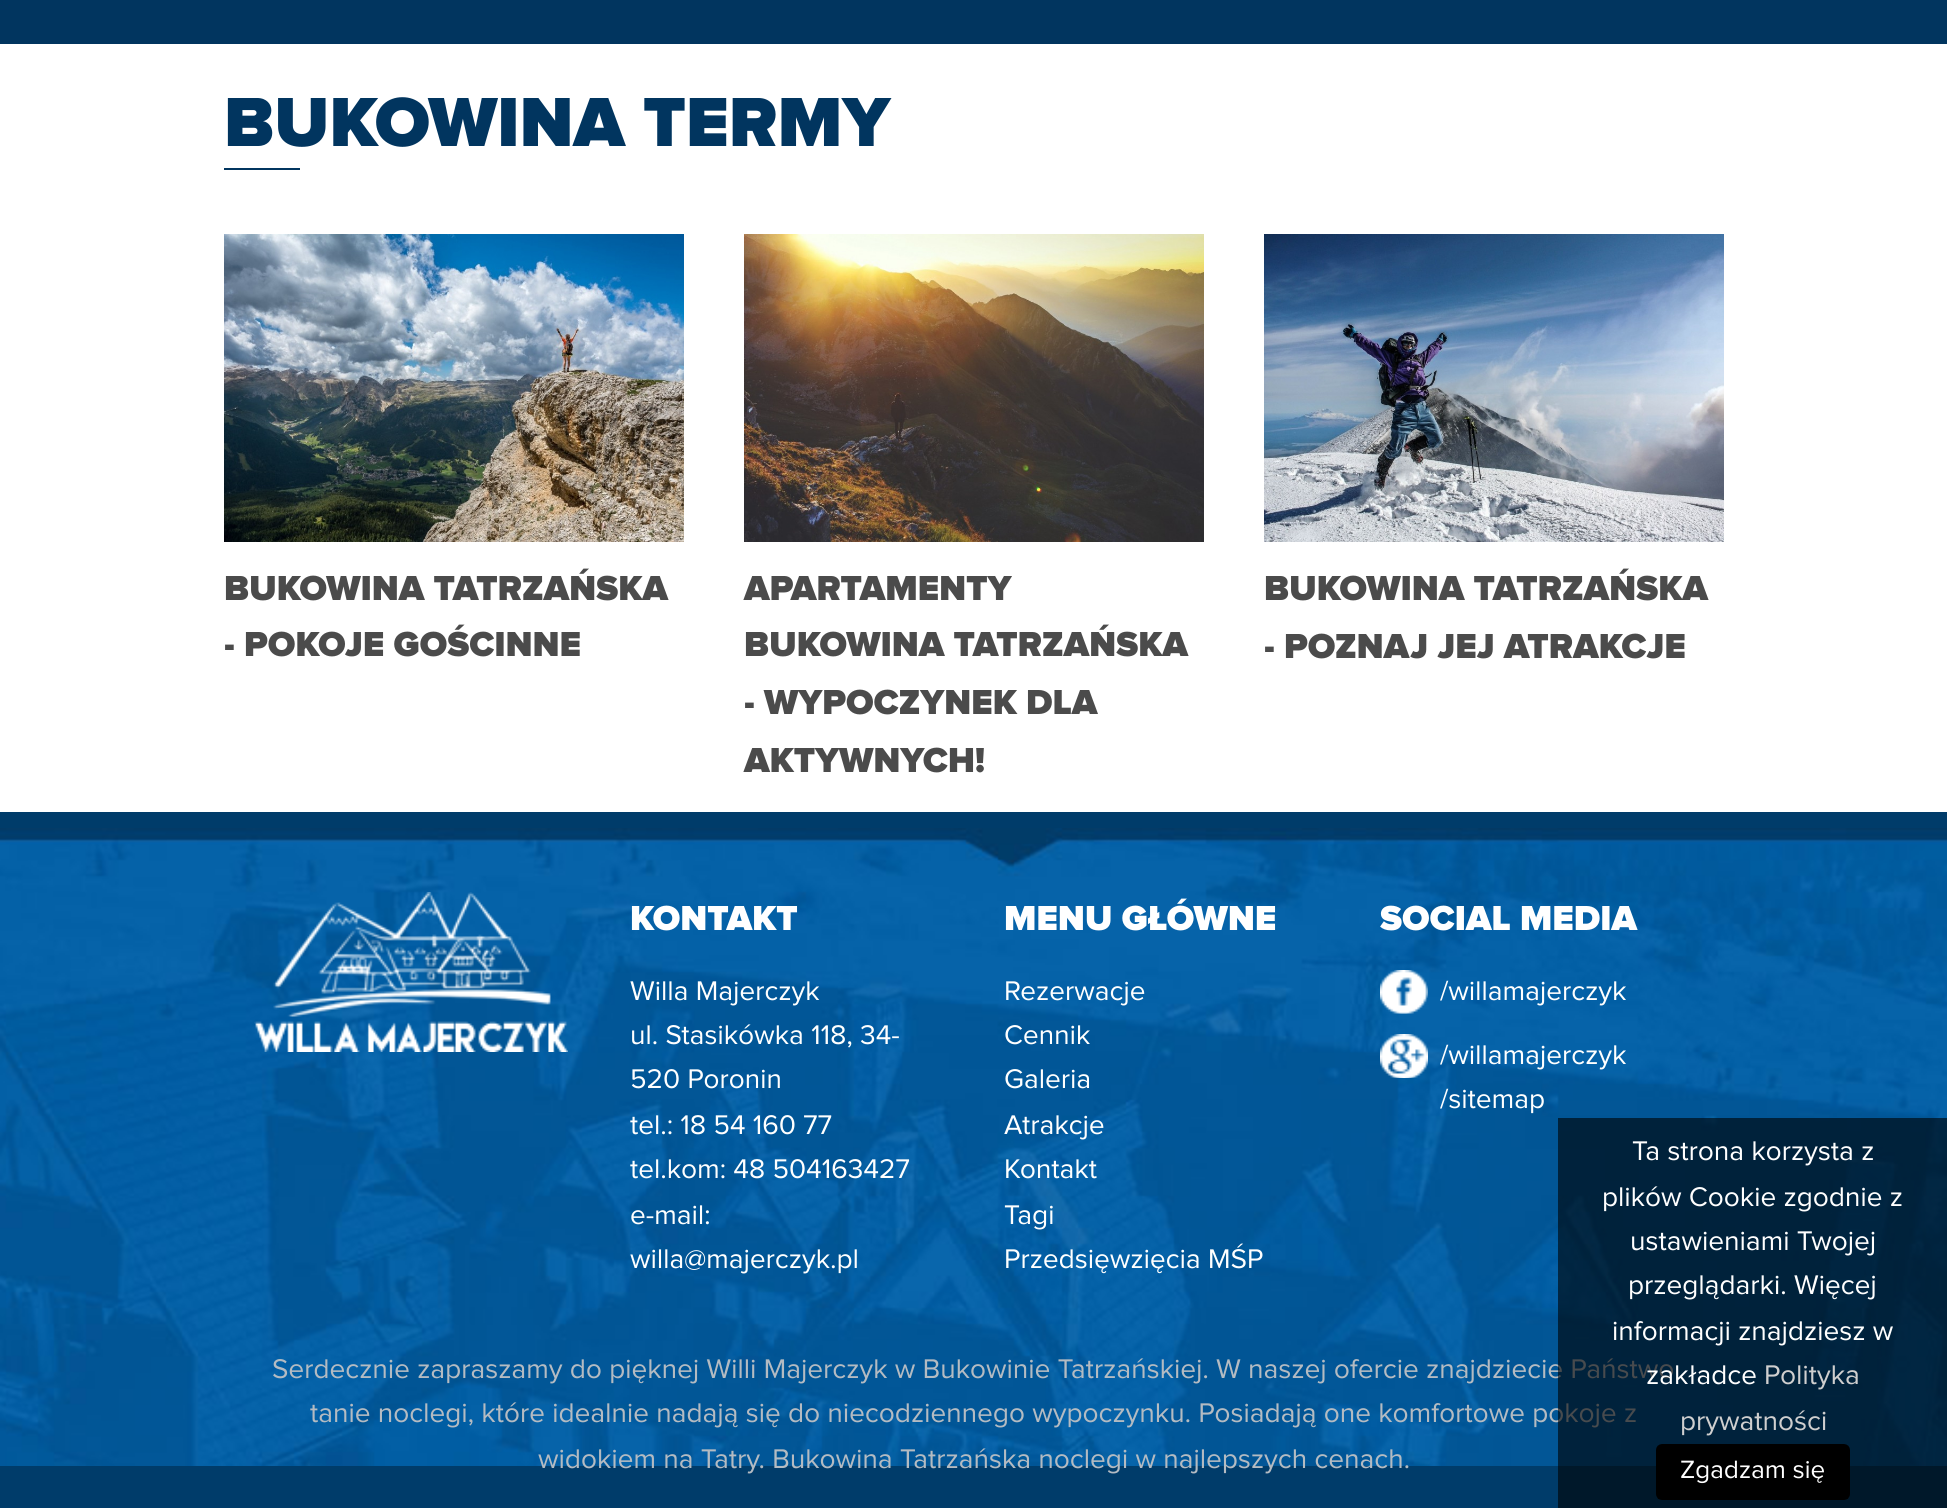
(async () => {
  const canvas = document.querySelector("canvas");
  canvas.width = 1947;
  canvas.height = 1508;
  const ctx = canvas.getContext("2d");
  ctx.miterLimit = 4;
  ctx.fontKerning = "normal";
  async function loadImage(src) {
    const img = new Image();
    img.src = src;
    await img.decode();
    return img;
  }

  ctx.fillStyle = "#ffffff";
  ctx.fillRect(0, 0, 1947, 1508);
  ctx.fillStyle = "#01355f";
  ctx.fillRect(0, 0, 1947, 44);
  ctx.drawImage(await loadImage("img/1.png"), 227, 97, 665, 50);
  ctx.fillRect(224, 168, 76, 2);
  ctx.drawImage(await loadImage("img/2.png"), 224, 234, 460, 308);
  ctx.drawImage(await loadImage("img/3.png"), 225, 568, 444, 33);
  ctx.drawImage(await loadImage("img/4.png"), 225, 624, 355, 33);
  ctx.drawImage(await loadImage("img/5.png"), 744, 234, 460, 308);
  ctx.drawImage(await loadImage("img/6.png"), 743, 576, 269, 24);
  ctx.drawImage(await loadImage("img/3.png"), 745, 624, 444, 33);
  ctx.drawImage(await loadImage("img/7.png"), 745, 689, 353, 26);
  ctx.drawImage(await loadImage("img/8.png"), 743, 747, 241, 26);
  ctx.drawImage(await loadImage("img/9.png"), 1264, 234, 460, 308);
  ctx.drawImage(await loadImage("img/3.png"), 1265, 568, 444, 33);
  ctx.drawImage(await loadImage("img/10.png"), 1265, 633, 420, 26);
  ctx.fillStyle = "#003c6a";
  ctx.fillRect(0, 812, 1947, 696);
  ctx.drawImage(await loadImage("img/11.png"), 0, 828, 1947, 638);
  ctx.drawImage(await loadImage("img/12.png"), 254, 892, 314, 160);
  ctx.drawImage(await loadImage("img/13.png"), 631, 905, 167, 26);
  ctx.drawImage(await loadImage("img/14.png"), 630, 981, 190, 25);
  ctx.drawImage(await loadImage("img/15.png"), 632, 1024, 267, 24);
  ctx.drawImage(await loadImage("img/16.png"), 631, 1069, 149, 20);
  ctx.drawImage(await loadImage("img/17.png"), 630, 1115, 202, 20);
  ctx.drawImage(await loadImage("img/18.png"), 630, 1159, 280, 20);
  ctx.drawImage(await loadImage("img/19.png"), 631, 1205, 78, 20);
  ctx.drawImage(await loadImage("img/20.png"), 630, 1249, 227, 25);
  ctx.drawImage(await loadImage("img/21.png"), 1005, 898, 271, 33);
  ctx.drawImage(await loadImage("img/22.png"), 1006, 981, 139, 25);
  ctx.drawImage(await loadImage("img/23.png"), 1005, 1025, 85, 20);
  ctx.drawImage(await loadImage("img/24.png"), 1005, 1069, 84, 20);
  ctx.drawImage(await loadImage("img/25.png"), 1004, 1115, 100, 25);
  ctx.drawImage(await loadImage("img/26.png"), 1006, 1159, 91, 20);
  ctx.drawImage(await loadImage("img/27.png"), 1004, 1205, 49, 25);
  ctx.drawImage(await loadImage("img/28.png"), 1006, 1243, 257, 31);
  ctx.drawImage(await loadImage("img/29.png"), 1380, 905, 258, 26);
  ctx.drawImage(await loadImage("img/30.png"), 1380, 970, 48, 44);
  ctx.drawImage(await loadImage("img/31.png"), 1440, 980, 186, 26);
  ctx.drawImage(await loadImage("img/32.png"), 1380, 1034, 48, 44);
  ctx.drawImage(await loadImage("img/33.png"), 1440, 1044, 186, 26);
  ctx.drawImage(await loadImage("img/34.png"), 1440, 1088, 104, 26);
  ctx.drawImage(await loadImage("img/35.png"), 273, 1358, 1400, 26);
  ctx.drawImage(await loadImage("img/36.png"), 310, 1402, 1326, 26);
  ctx.drawImage(await loadImage("img/37.png"), 538, 1448, 871, 26);
  ctx.fillStyle = "rgba(0, 0, 0, 0.6)";
  ctx.fillRect(1558, 1118, 389, 390);
  ctx.drawImage(await loadImage("img/38.png"), 1632, 1141, 241, 25);
  ctx.drawImage(await loadImage("img/39.png"), 1604, 1186, 298, 26);
  ctx.drawImage(await loadImage("img/40.png"), 1632, 1231, 243, 25);
  ctx.drawImage(await loadImage("img/41.png"), 1630, 1275, 245, 25);
  ctx.drawImage(await loadImage("img/42.png"), 1613, 1321, 280, 25);
  ctx.drawImage(await loadImage("img/43.png"), 1647, 1365, 109, 20);
  ctx.drawImage(await loadImage("img/44.png"), 1766, 1365, 92, 25);
  ctx.drawImage(await loadImage("img/45.png"), 1682, 1410, 144, 26);
  ctx.fillStyle = "#000000";
  ctx.beginPath();
  ctx.roundRect(1656, 1444, 194, 56, 6);
  ctx.fill();
  ctx.drawImage(await loadImage("img/46.png"), 1681, 1460, 143, 24);
})();
